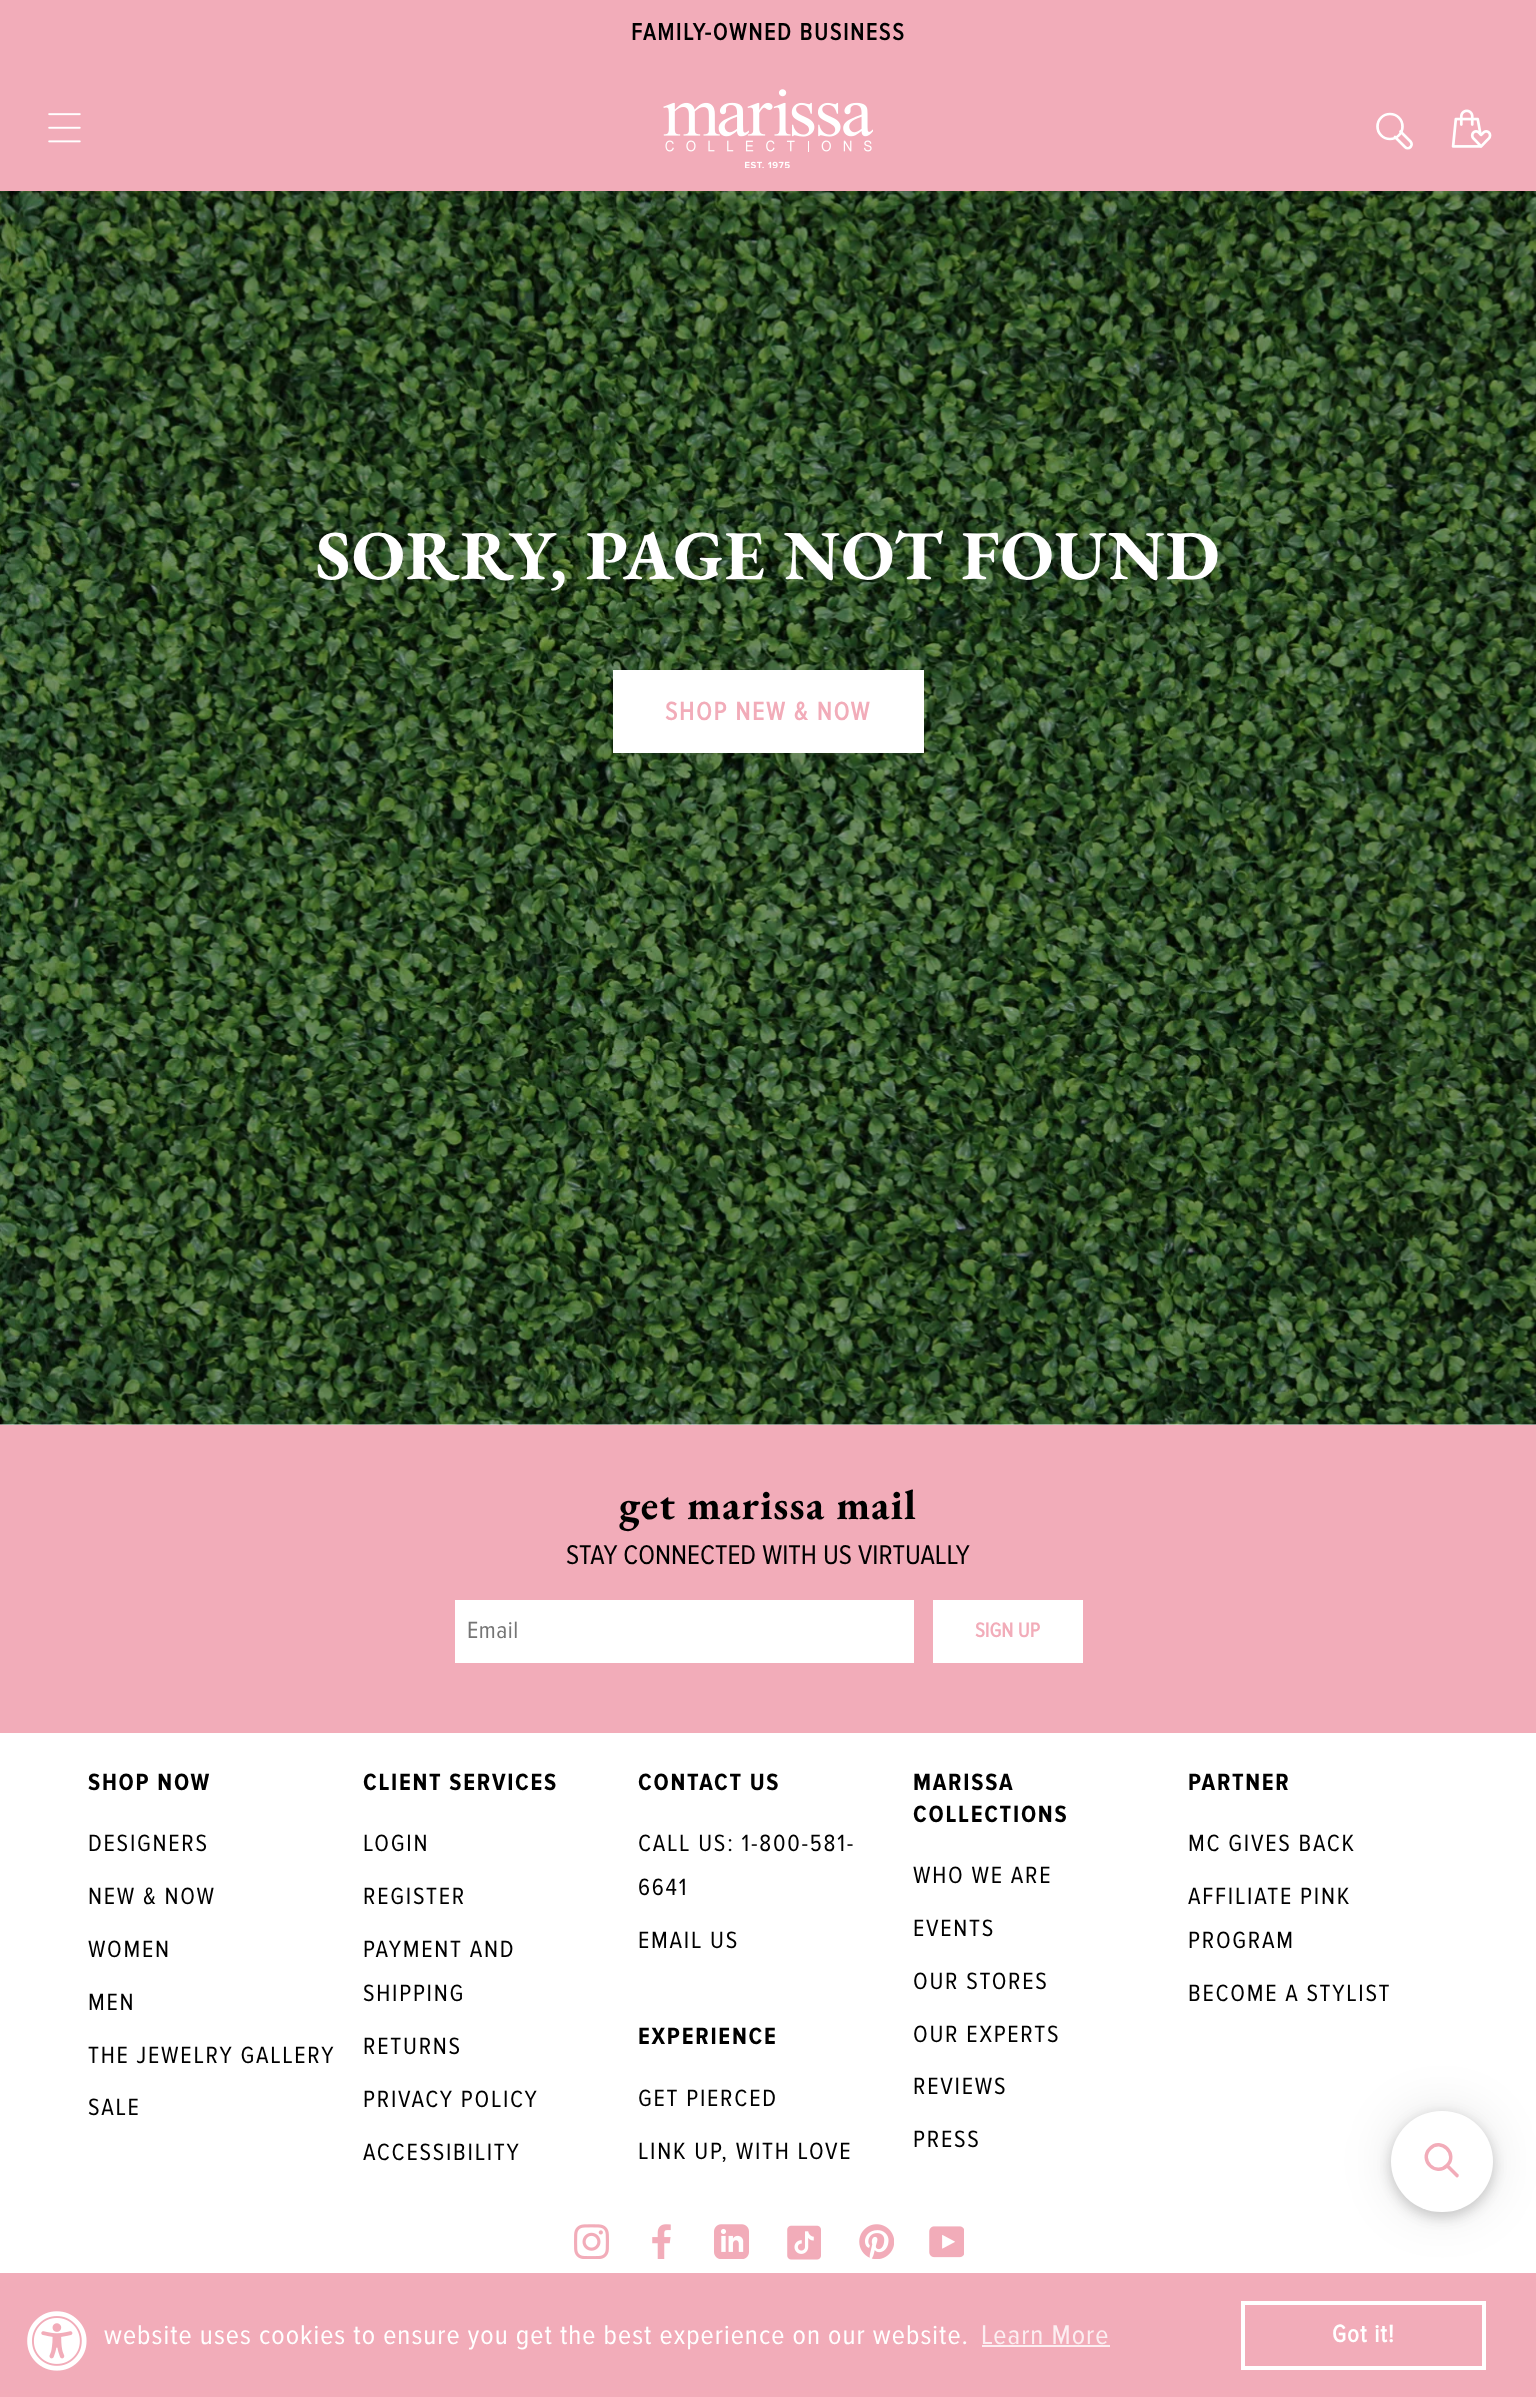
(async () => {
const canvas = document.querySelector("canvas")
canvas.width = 1536
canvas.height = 2397
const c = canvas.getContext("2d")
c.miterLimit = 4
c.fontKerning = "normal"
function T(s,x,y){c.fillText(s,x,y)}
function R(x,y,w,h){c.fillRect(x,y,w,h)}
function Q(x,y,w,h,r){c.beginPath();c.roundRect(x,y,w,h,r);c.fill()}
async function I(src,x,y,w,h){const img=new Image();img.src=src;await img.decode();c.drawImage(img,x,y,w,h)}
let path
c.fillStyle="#fff"
R(0,0,1536,2397)
c.fillStyle="#f2acb9"
R(0,0,1536,191)
c.letterSpacing="1.75px"
c.font="bold 24.5px 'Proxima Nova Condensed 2'"
c.fillStyle="#000"
T("FAMILY-OWNED BUSINESS",631,40)
await I("1.png",48,113,33,30)
await I("2.png",663,89,210,79)
c.beginPath()
c.arc(1390,126.5,12.5,0,7)
c.strokeStyle="#fff"
c.lineWidth=2.7
c.stroke()
path = new Path2D("M1395 137l10 10c1.5 1.5 4 1.5 5.5 0c1.5-1.5 1.5-4 0-5.5l-10-10")
c.lineCap="round"
c.lineJoin="round"
c.stroke(path)
await I("3.png",1451,109,41,39)
await I("4.png",0,191,1536,1234)
c.letterSpacing="1.05px"
c.font="bold 70px EB Garamond"
c.fillStyle="#fff"
T("SORRY, PAGE NOT FOUND",316,579)
R(613,670,311,83)
c.letterSpacing="1.75px"
c.font="bold 26.25px 'Proxima Nova Condensed 2'"
c.fillStyle="#f2acb9"
T("SHOP NEW & NOW",665,720)
R(0,1425,1536,308)
c.letterSpacing="1.05px"
c.font="bold 42px EB Garamond"
c.fillStyle="#000"
T("get marissa mail",619,1519)
c.letterSpacing="0px"
c.font="28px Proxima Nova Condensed"
T("STAY CONNECTED WITH US VIRTUALLY",566,1564)
c.fillStyle="#fff"
R(455,1600,459,63)
c.letterSpacing="0.5px"
c.font="24.5px Proxima Nova Condensed"
c.fillStyle="#757575"
T("Email",467,1638)
c.fillStyle="#fff"
R(933,1600,150,63)
c.letterSpacing="0px"
c.font="bold 21px 'Proxima Nova Condensed 2'"
c.fillStyle="#f2acb9"
T("SIGN UP",975,1637)
c.letterSpacing="1.75px"
c.font="bold 24.5px Proxima Nova Condensed"
c.fillStyle="#000"
T("SHOP NOW",88,1790)
c.font="24.5px Proxima Nova Condensed"
T("DESIGNERS",88,1851)
T("NEW & NOW",88,1904)
T("WOMEN",88,1957)
T("MEN",88,2010)
T("THE JEWELRY GALLERY",88,2063)
T("SALE",88,2115)
c.font="bold 24.5px Proxima Nova Condensed"
T("CLIENT SERVICES",363,1790)
c.font="24.5px Proxima Nova Condensed"
T("LOGIN",363,1851)
T("REGISTER",363,1904)
T("PAYMENT AND",363,1957)
T("SHIPPING",363,2001)
T("RETURNS",363,2054)
T("PRIVACY POLICY",363,2107)
T("ACCESSIBILITY",363,2160)
c.font="bold 24.5px Proxima Nova Condensed"
T("CONTACT US",638,1790)
c.font="24.5px Proxima Nova Condensed"
T("CALL US: 1-800-581-",638,1851)
T("6641",638,1895)
T("EMAIL US",638,1948)
c.font="bold 24.5px Proxima Nova Condensed"
T("EXPERIENCE",638,2044)
c.font="24.5px Proxima Nova Condensed"
T("GET PIERCED",638,2106)
T("LINK UP, WITH LOVE",638,2159)
c.font="bold 24.5px Proxima Nova Condensed"
T("MARISSA",913,1790)
T("COLLECTIONS",913,1822)
c.font="24.5px Proxima Nova Condensed"
T("WHO WE ARE",913,1883)
T("EVENTS",913,1936)
T("OUR STORES",913,1989)
T("OUR EXPERTS",913,2042)
T("REVIEWS",913,2094)
T("PRESS",913,2147)
c.font="bold 24.5px Proxima Nova Condensed"
T("PARTNER",1188,1790)
c.font="24.5px Proxima Nova Condensed"
T("MC GIVES BACK",1188,1851)
T("AFFILIATE PINK",1188,1904)
T("PROGRAM",1188,1948)
T("BECOME A STYLIST",1188,2001)
await I("5.png",574,2224,35,35)
await I("6.png",652,2224,19,35)
await I("7.png",714,2224,35,35)
await I("8.png",787,2225,34,35)
await I("9.png",859,2224,35,35)
await I("10.png",929,2226,35,32)
c.fillStyle="#0000000d"
c.filter="blur(7px)"
c.beginPath()
c.roundRect(1391,2118,102,101,50.5)
c.fill()
c.filter="none"
c.fillStyle="#00000026"
c.filter="blur(7px)"
c.beginPath()
c.roundRect(1391,2114,102,102,51)
c.fill()
c.filter="none"
c.fillStyle="#f2acb9"
R(0,2273,1536,124)
c.fillStyle="#0000001a"
c.filter="blur(26px)"
c.beginPath()
c.roundRect(1391,2111,102,101,50.5)
c.fill()
c.filter="none"
c.fillStyle="#fff"
Q(1391,2111,102,101,50.5)
path = new Path2D("M1430 2148.5c11-11.5 28.5 6 17 17c-11 11.5-28.5-5.5-17-17z")
c.strokeStyle="#f2acb9"
c.lineWidth=3.5
c.lineCap="butt"
c.lineJoin="miter"
c.stroke(path)
c.fillStyle="#f2acb9"
path = new Path2D("M1446 2167l2.5-2.5l10 10c1 2-1 4-2.5 2.5z")
c.fill(path)
await I("11.png",27,2311,60,60)
c.letterSpacing="1.05px"
c.font="28px Proxima Nova Condensed"
c.fillStyle="#fff"
T("website uses cookies to ensure you get the best experience on our website.",104,2344)
c.fillStyle="#fceef1"
T("Learn More",981,2344)
R(982,2345,128,2)
c.strokeStyle="#fff"
c.lineWidth=4
c.strokeRect(1243,2303,241,65)
c.font="bold 25px 'Proxima Nova Condensed 2'"
c.fillStyle="#fff"
T("Got it!",1332,2342)
})()
